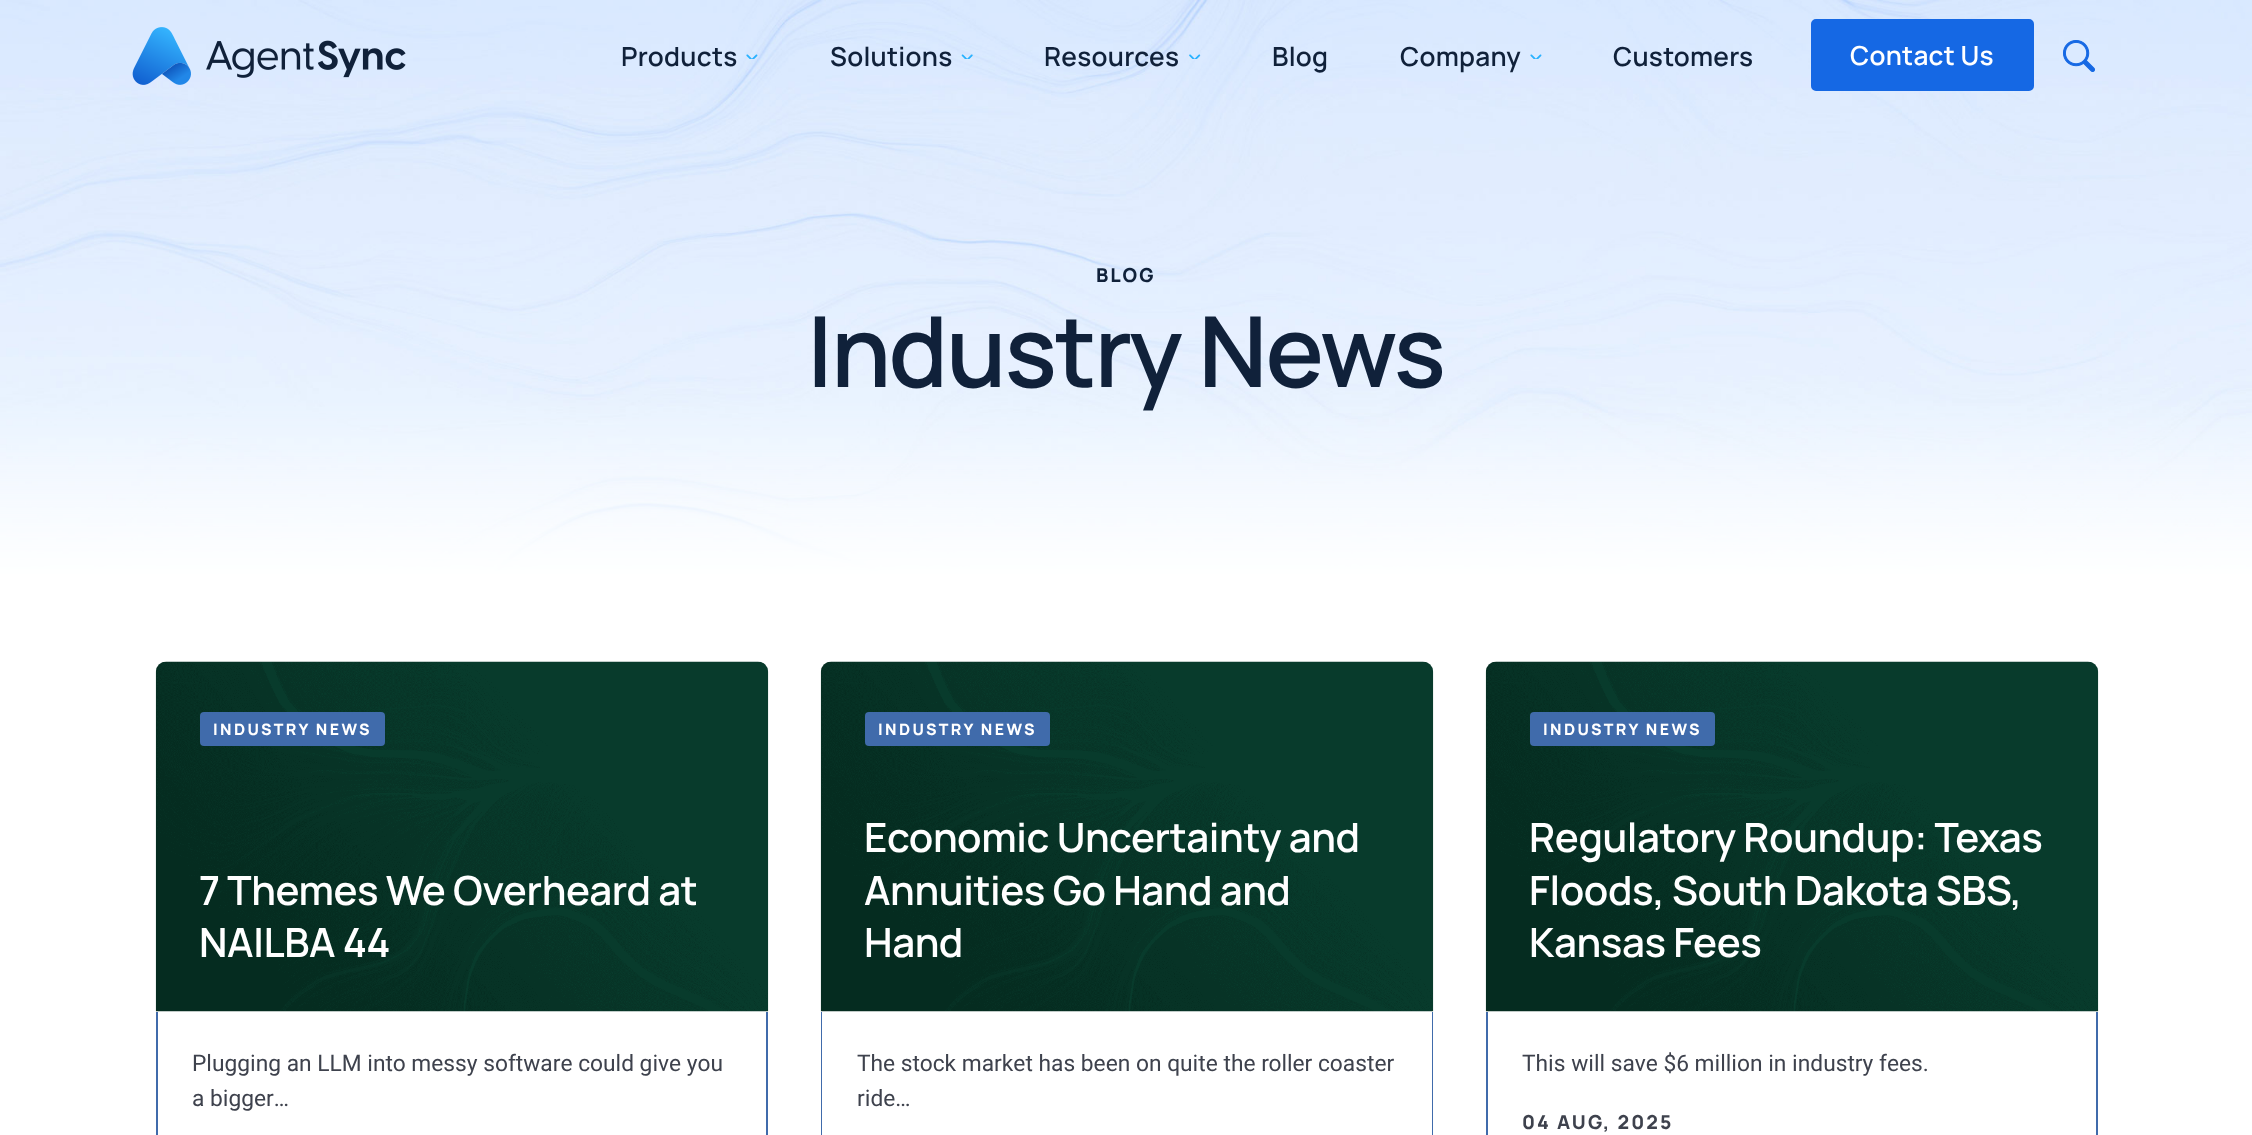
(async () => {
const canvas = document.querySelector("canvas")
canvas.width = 2252
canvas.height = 1135
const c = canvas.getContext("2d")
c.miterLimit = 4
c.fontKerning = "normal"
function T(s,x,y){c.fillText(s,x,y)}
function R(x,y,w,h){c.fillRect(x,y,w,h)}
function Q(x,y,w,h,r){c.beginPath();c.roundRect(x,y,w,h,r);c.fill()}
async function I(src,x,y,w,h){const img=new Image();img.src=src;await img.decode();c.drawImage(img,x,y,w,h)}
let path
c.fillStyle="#fff"
R(0,0,2252,1135)
await I("7.png",0,0,2252,574)
await I("1.png",132,27,274,58)
c.letterSpacing="0.25px"
c.font="600 26.25px Manrope"
c.fillStyle="#10213a"
T("Products",621,66)
await I("2.png",746,54,12,5)
T("Solutions",830,66)
await I("3.png",961,54,12,5)
T("Resources",1044,66)
await I("4.png",1189,54,12,5)
T("Blog",1272,66)
T("Company",1400,66)
await I("5.png",1530,54,12,5)
T("Customers",1613,66)
c.fillStyle="#1568e4"
c.beginPath()
c.roundRect(1813,21,219,68,3)
c.fill()
c.strokeStyle="#1568e4"
c.lineWidth=4
c.stroke()
c.fillStyle="#fff"
T("Contact Us",1850,65)
await I("6.png",2063,40,32,32)
c.letterSpacing="2.1px"
c.font="800 19.25px Manrope"
c.fillStyle="#10213a"
T("BLOG",1096,282)
c.letterSpacing="-2px"
c.font="600 98px Manrope"
T("Industry News",807,387)
c.fillStyle="#406bab"
path = new Path2D("M156 1012h612v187c0 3-2 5-5 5h-602c-3 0-5-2-5-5zm2 0h608v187c0 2-1 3-3 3h-602c-2 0-3-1-3-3z")
c.fill(path,"evenodd")
await I("8.png",155,661,614,351)
Q(200,712,185,34,4)
c.letterSpacing="2.4px"
c.font="800 15.75px Manrope"
c.fillStyle="#fff"
T("INDUSTRY NEWS",213,735)
c.letterSpacing="0px"
c.font="22.75px Heebo"
c.fillStyle="#3e424d"
T("Plugging an LLM into messy software could give you",192,1071)
T("a bigger…",192,1106)
c.letterSpacing="-0.4px"
c.font="600 40.25px Manrope"
c.fillStyle="#fff"
T("7 Themes We Overheard at",199,905)
T("NAILBA 44",199,957)
c.fillStyle="#406bab"
path = new Path2D("M821 1012h612v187c0 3-2 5-5 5h-602c-3 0-5-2-5-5zm1 0h610v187c0 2-2 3-4 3h-602c-2 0-4-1-4-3z")
c.fill(path,"evenodd")
await I("9.png",820,661,614,351)
Q(865,712,185,34,4)
c.letterSpacing="2.4px"
c.font="800 15.75px Manrope"
c.fillStyle="#fff"
T("INDUSTRY NEWS",878,735)
c.letterSpacing="0px"
c.font="22.75px Heebo"
c.fillStyle="#3e424d"
T("The stock market has been on quite the roller coaster",857,1071)
T("ride…",857,1106)
c.letterSpacing="-0.4px"
c.font="600 40.25px Manrope"
c.fillStyle="#fff"
T("Economic Uncertainty and",864,852)
T("Annuities Go Hand and",864,905)
T("Hand",864,957)
c.fillStyle="#406bab"
path = new Path2D("M1486 1012h612v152c0 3-2 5-5 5h-602c-3 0-5-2-5-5zm2 0h608v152c0 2-1 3-3 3h-602c-2 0-3-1-3-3z")
c.fill(path,"evenodd")
await I("10.png",1485,661,614,351)
Q(1530,712,185,34,4)
c.letterSpacing="2.4px"
c.font="800 15.75px Manrope"
c.fillStyle="#fff"
T("INDUSTRY NEWS",1543,735)
c.letterSpacing="2.1px"
c.font="800 19.25px Manrope"
c.fillStyle="#3e424d"
T("04 AUG, 2025",1522,1129)
c.letterSpacing="0px"
c.font="22.75px Heebo"
T("This will save $6 million in industry fees.",1522,1071)
c.letterSpacing="-0.4px"
c.font="600 40.25px Manrope"
c.fillStyle="#fff"
T("Regulatory Roundup: Texas",1529,852)
T("Floods, South Dakota SBS,",1529,905)
T("Kansas Fees",1529,957)
})()
